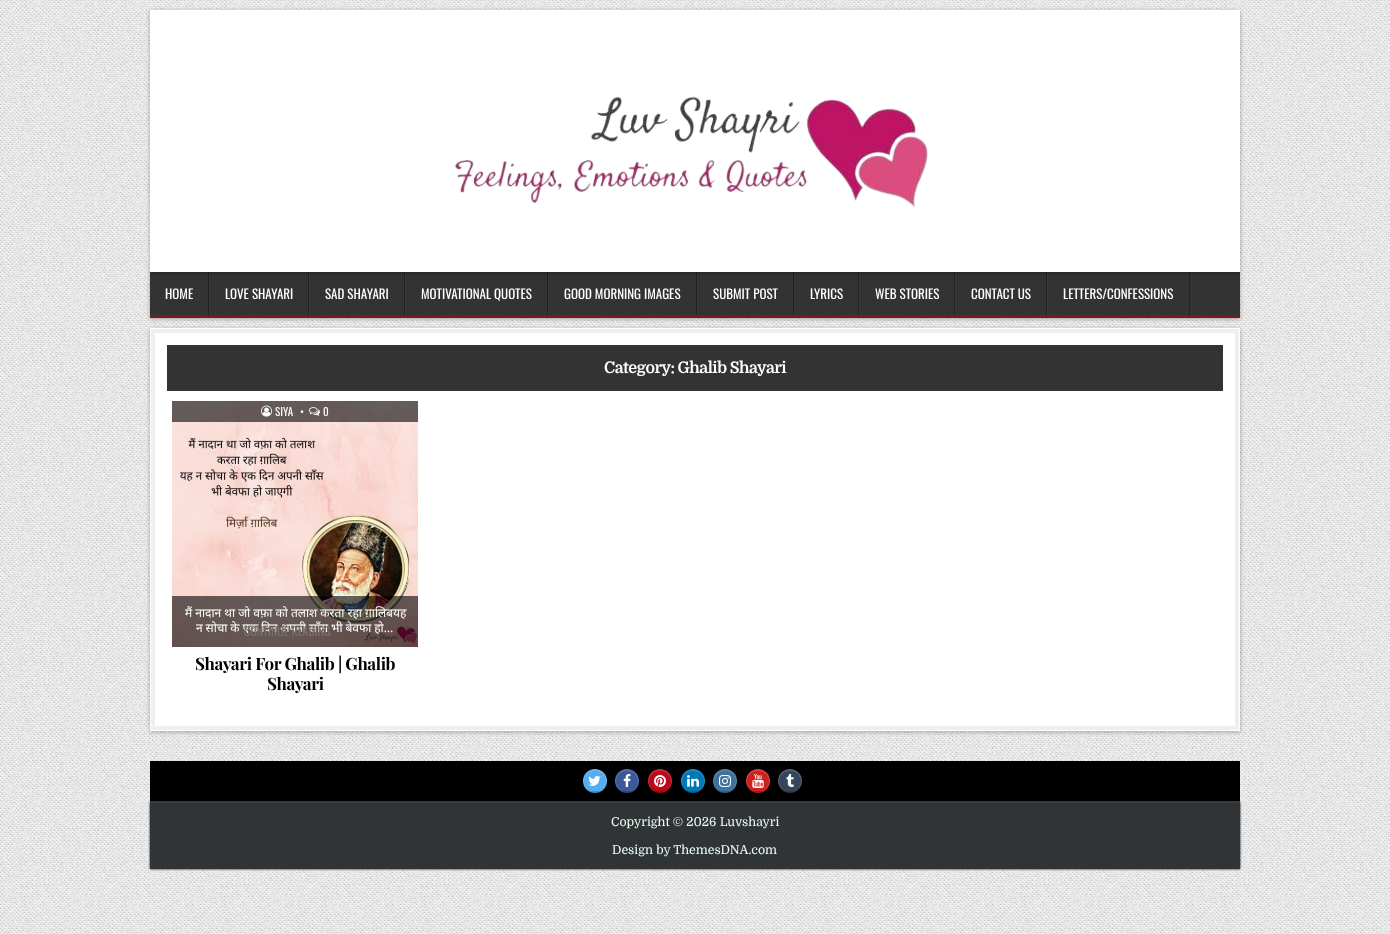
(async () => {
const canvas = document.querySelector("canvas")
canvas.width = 1390
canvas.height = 934
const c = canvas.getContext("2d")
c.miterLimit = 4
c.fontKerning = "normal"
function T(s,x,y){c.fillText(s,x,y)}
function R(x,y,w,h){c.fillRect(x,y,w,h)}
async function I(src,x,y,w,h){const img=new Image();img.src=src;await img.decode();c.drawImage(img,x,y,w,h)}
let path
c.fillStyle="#fff"
R(0,0,1390,934)
await I("1.png",0,0,1390,934)
c.fillStyle="#0000004d"
c.filter="blur(2px)"
c.beginPath()
c.rect(150,273,1090,46)
c.fill()
c.filter="none"
c.fillStyle="#333"
R(150,272,1090,43)
c.fillStyle="#222"
R(208,272,1,43)
R(308,272,1,43)
c.fillStyle="#383838"
R(209,272,1,43)
c.fillStyle="#222"
R(404,272,1,43)
c.fillStyle="#383838"
R(309,272,1,43)
c.fillStyle="#222"
R(547,272,1,43)
c.fillStyle="#383838"
R(405,272,1,43)
c.fillStyle="#222"
R(696,272,1,43)
c.fillStyle="#383838"
R(548,272,1,43)
c.fillStyle="#222"
R(793,272,1,43)
c.fillStyle="#383838"
R(697,272,1,43)
c.fillStyle="#222"
R(858,272,1,43)
c.fillStyle="#383838"
R(794,272,1,43)
c.fillStyle="#222"
R(954,272,1,43)
c.fillStyle="#383838"
R(859,272,1,43)
c.fillStyle="#222"
R(1046,272,1,43)
c.fillStyle="#383838"
R(955,272,1,43)
c.fillStyle="#222"
R(1189,272,1,43)
c.fillStyle="#383838"
R(1047,272,1,43)
c.fillStyle="#0000004d"
c.filter="blur(2px)"
c.beginPath()
c.rect(150,11,1090,262)
c.fill()
c.filter="none"
c.fillStyle="#fff"
R(150,10,1090,262)
await I("2.png",455,96,473,112)
c.fillStyle="#7f181b"
R(150,315,1090,3)
c.font="13px Oswald"
c.fillStyle="#fff"
T("HOME",165,299)
T("LOVE SHAYARI",225,299)
T("SAD SHAYARI",325,299)
T("MOTIVATIONAL QUOTES",421,299)
T("GOOD MORNING IMAGES",564,299)
T("SUBMIT POST",713,299)
T("LYRICS",810,299)
T("WEB STORIES",875,299)
T("CONTACT US",971,299)
T("LETTERS/CONFESSIONS",1063,299)
c.fillStyle="#0000004d"
c.filter="blur(2px)"
c.beginPath()
c.rect(150,329,1090,403)
c.fill()
c.filter="none"
c.fillStyle="#fff"
R(150,328,1090,403)
c.strokeStyle="#efefef"
c.lineWidth=4
c.strokeRect(153,331,1084,397)
c.fillStyle="#333"
R(167,345,1056,46)
c.letterSpacing="-0.5px"
c.font="bold 16px Domine"
c.fillStyle="#fff"
T("Category: Ghalib Shayari",604,373)
await I("3.png",172,401,246,246)
c.fillStyle="#00000099"
R(172,401,246,21)
await I("4.png",261,405,11,12)
c.letterSpacing="0px"
c.font="11px Oswald"
c.fillStyle="#fff"
T("SIYA",275,416)
T("•",300,416)
await I("5.png",309,407,11,9)
T("0",323,416)
c.fillStyle="#00000099"
R(172,596,246,51)
c.font="12px Noto Sans"
c.fillStyle="#fff"
T("मैं नादान था जो वफ़ा को तलाश करता रहा ग़ालिबयह",185,617)
c.wordSpacing="-0.25px"
T("न सोचा के एक दिन अपनी साँस भी बेवफा हो…",196,632)
c.wordSpacing="0px"
c.font="12px Oswald"
c.fillStyle="#7d706e"
T("CONTINUE READING",244,636)
c.letterSpacing="-0.4px"
c.font="bold 17px Playfair Display"
c.fillStyle="#000"
T("Shayari For Ghalib | Ghalib",195,670)
T("Shayari",267,690)
R(150,761,1090,40)
c.fillStyle="#555"
R(150,801,1090,1)
c.fillStyle="#55acee"
c.beginPath()
c.arc(595,781,12,0,7)
c.fill()
c.fillStyle="#ffffff24"
path = new Path2D("M595 771c12 0 14.5 15 5 19c4-1.5 7-5 7-9c0-6.5-5.5-12-12-12c-6.5 0-12 5.5-12 12c0 4 3 7.5 7 9c-9.5-4-7-19 5-19z")
c.fill(path)
c.fillStyle="#0000002e"
R(589,791,12,2)
await I("6.png",588,776,13,10)
c.fillStyle="#3b5998"
c.beginPath()
c.arc(627,781,12,0,7)
c.fill()
c.fillStyle="#ffffff24"
path = new Path2D("M627 771c12 0 14.5 15 5 19c4-1.5 7-5 7-9c0-6.5-5.5-12-12-12c-6.5 0-12 5.5-12 12c0 4 3 7.5 7 9c-9.5-4-7-19 5-19z")
c.fill(path)
c.fillStyle="#0000002e"
R(621,791,12,2)
await I("7.png",623,774,8,13)
c.fillStyle="#bd081c"
c.beginPath()
c.arc(660,781,12,0,7)
c.fill()
c.fillStyle="#ffffff24"
path = new Path2D("M660 771c12 0 14.5 15 5 19c4-1.5 7-5 7-9c0-6.5-5.5-12-12-12c-6.5 0-12 5.5-12 12c0 4 3 7.5 7 9c-9.5-4-7-19 5-19z")
c.fill(path)
c.fillStyle="#0000002e"
R(654,791,12,2)
await I("8.png",654,775,12,12)
c.fillStyle="#0077b5"
c.beginPath()
c.arc(693,781,12,0,7)
c.fill()
c.fillStyle="#ffffff24"
path = new Path2D("M693 771c12 0 14.5 15 5 19c4-1.5 7-5 7-9c0-6.5-5.5-12-12-12c-6.5 0-12 5.5-12 12c0 4 3 7.5 7 9c-9.5-4-7-19 5-19z")
c.fill(path)
c.fillStyle="#0000002e"
R(687,791,12,2)
await I("9.png",687,775,12,12)
c.fillStyle="#3f729b"
c.beginPath()
c.arc(725,781,12,0,7)
c.fill()
c.fillStyle="#ffffff24"
path = new Path2D("M725 771c12 0 14.5 15 5 19c4-1.5 7-5 7-9c0-6.5-5.5-12-12-12c-6.5 0-12 5.5-12 12c0 4 3 7.5 7 9c-9.5-4-7-19 5-19z")
c.fill(path)
c.fillStyle="#0000002e"
R(719,791,12,2)
await I("10.png",719,775,12,12)
c.fillStyle="#cd201f"
c.beginPath()
c.arc(758,781,12,0,7)
c.fill()
c.fillStyle="#ffffff24"
path = new Path2D("M758 771c12 0 14.5 15 5 19c4-1.5 7-5 7-9c0-6.5-5.5-12-12-12c-6.5 0-12 5.5-12 12c0 4 3 7.5 7 9c-9.5-4-7-19 5-19z")
c.fill(path)
c.fillStyle="#0000002e"
R(752,791,12,2)
await I("11.png",752,774,12,14)
c.fillStyle="#35465c"
c.beginPath()
c.arc(790,781,12,0,7)
c.fill()
c.fillStyle="#ffffff24"
path = new Path2D("M790 771c12 0 14.5 15 5 19c4-1.5 7-5 7-9c0-6.5-5.5-12-12-12c-6.5 0-12 5.5-12 12c0 4 3 7.5 7 9c-9.5-4-7-19 5-19z")
c.fill(path)
c.fillStyle="#0000002e"
R(784,791,12,2)
await I("12.png",786,774,8,13)
c.fillStyle="#000"
c.filter="blur(1px)"
c.beginPath()
c.rect(150,802,1090,67)
c.fill()
c.filter="none"
c.fillStyle="#303436"
R(150,803,1090,66)
c.fillStyle="#3d3d3d"
R(150,802,1090,1)
c.letterSpacing="0px"
c.font="12.3px Domine"
c.fillStyle="#ecfff1"
T("Copyright © 2026 Luvshayri",611,826)
T("Design by ThemesDNA.com",612,854)
})()
